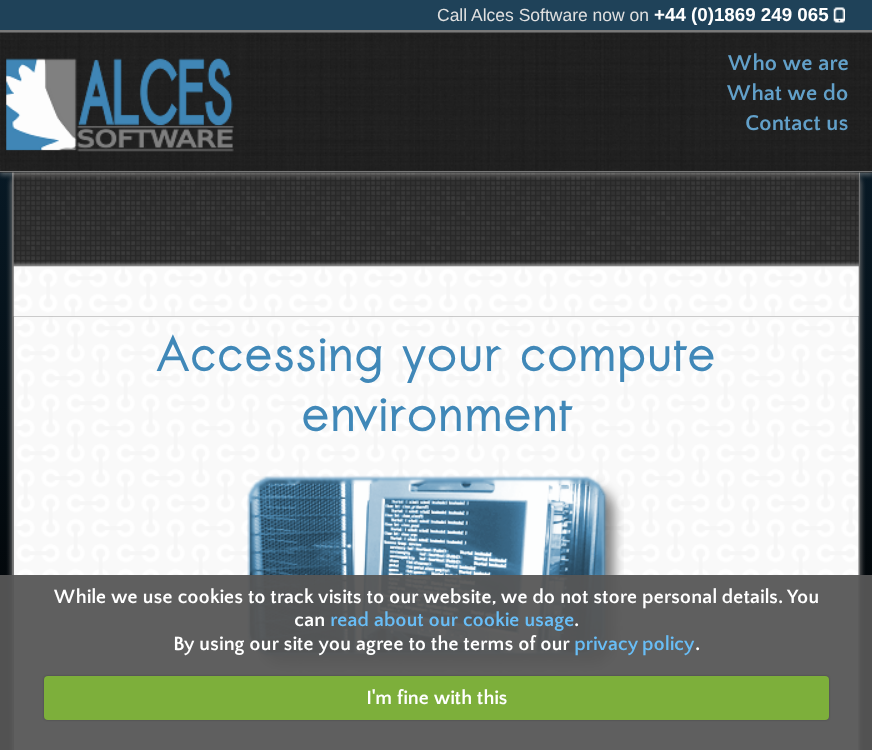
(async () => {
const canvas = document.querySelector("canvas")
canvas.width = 872
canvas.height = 750
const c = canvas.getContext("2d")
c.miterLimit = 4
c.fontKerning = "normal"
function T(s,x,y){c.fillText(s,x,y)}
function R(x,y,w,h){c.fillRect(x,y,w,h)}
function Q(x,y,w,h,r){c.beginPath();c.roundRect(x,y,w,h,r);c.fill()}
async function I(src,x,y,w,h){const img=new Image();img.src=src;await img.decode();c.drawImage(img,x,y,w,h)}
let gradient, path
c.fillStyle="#fff"
R(0,0,872,750)
gradient = c.createLinearGradient(436,0,436,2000)
gradient.addColorStop(0,"#0a202f")
gradient.addColorStop(.38,"#000")
gradient.addColorStop(.5,"#133d59")
gradient.addColorStop(1,"#000")
c.fillStyle = gradient
R(0,172,872,578)
c.fillStyle="#1f4259"
R(0,0,872,30)
c.fillStyle="#777"
R(0,30,872,3)
c.font="17.5px Liberation Sans"
c.fillStyle="#e0e0e0"
T("Call Alces Software now on",437,21)
c.font="bold 18.75px Liberation Sans"
c.fillStyle="#fff"
T("+44 (0)1869 249 065",654,21)
await I("1.png",833,7,12,16)
c.fillStyle="#777777e6"
c.filter="blur(2.5px)"
c.beginPath()
c.roundRect(11,171,850,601,14)
c.fill()
c.filter="none"
path = new Path2D("M12 172h848v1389c0 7-6 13-12 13h-823c-7 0-13-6-13-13zm2 0h845v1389c0 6-5 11-11 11h-823c-6 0-11-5-11-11z")
c.fill(path,"evenodd")
await I("4.png",13,172,846,145)
c.fillStyle="#dcdad866"
c.filter="blur(2.5px)"
c.beginPath()
c.rect(0,35,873,140)
c.fill()
c.filter="none"
await I("2.png",0,32,872,141)
c.fillStyle="#777"
R(0,171,872,1)
await I("3.png",6,58,228,94)
c.font="bold 22.5px Quattrocento Sans"
c.fillStyle="#62a0c9"
T("Who we are",728,70)
T("What we do",727,100)
T("Contact us",745,130)
await I("5.png",13,316,846,434)
c.font="bold 50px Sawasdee"
c.fillStyle="#4088b8"
T("Accessing your compute",156,371)
T("environment",301,431)
await I("6.png",247,475,377,199)
c.fillStyle="#565656f2"
R(0,575,872,175)
c.font="bold 20px Quattrocento Sans"
c.fillStyle="#fff"
T("While we use cookies to track visits to our website, we do not store personal details. You",54,603)
T("can",294,626)
c.fillStyle="#68bdf6"
T("read about our cookie usage",330,626)
c.fillStyle="#fff"
T(".",574,626)
T("By using our site you agree to the terms of our",173,650)
c.wordSpacing="-1px"
c.fillStyle="#68bdf6"
T("privacy policy",574,650)
c.wordSpacing="0px"
c.fillStyle="#fff"
T(".",695,650)
c.fillStyle="#00000040"
c.filter="blur(1px)"
c.beginPath()
c.roundRect(44,676,785,44,4)
c.fill()
c.filter="none"
c.fillStyle="#7daf3b"
Q(44,676,785,44,4)
c.fillStyle="#fff"
T("I'm fine with this",366,704)
})()
